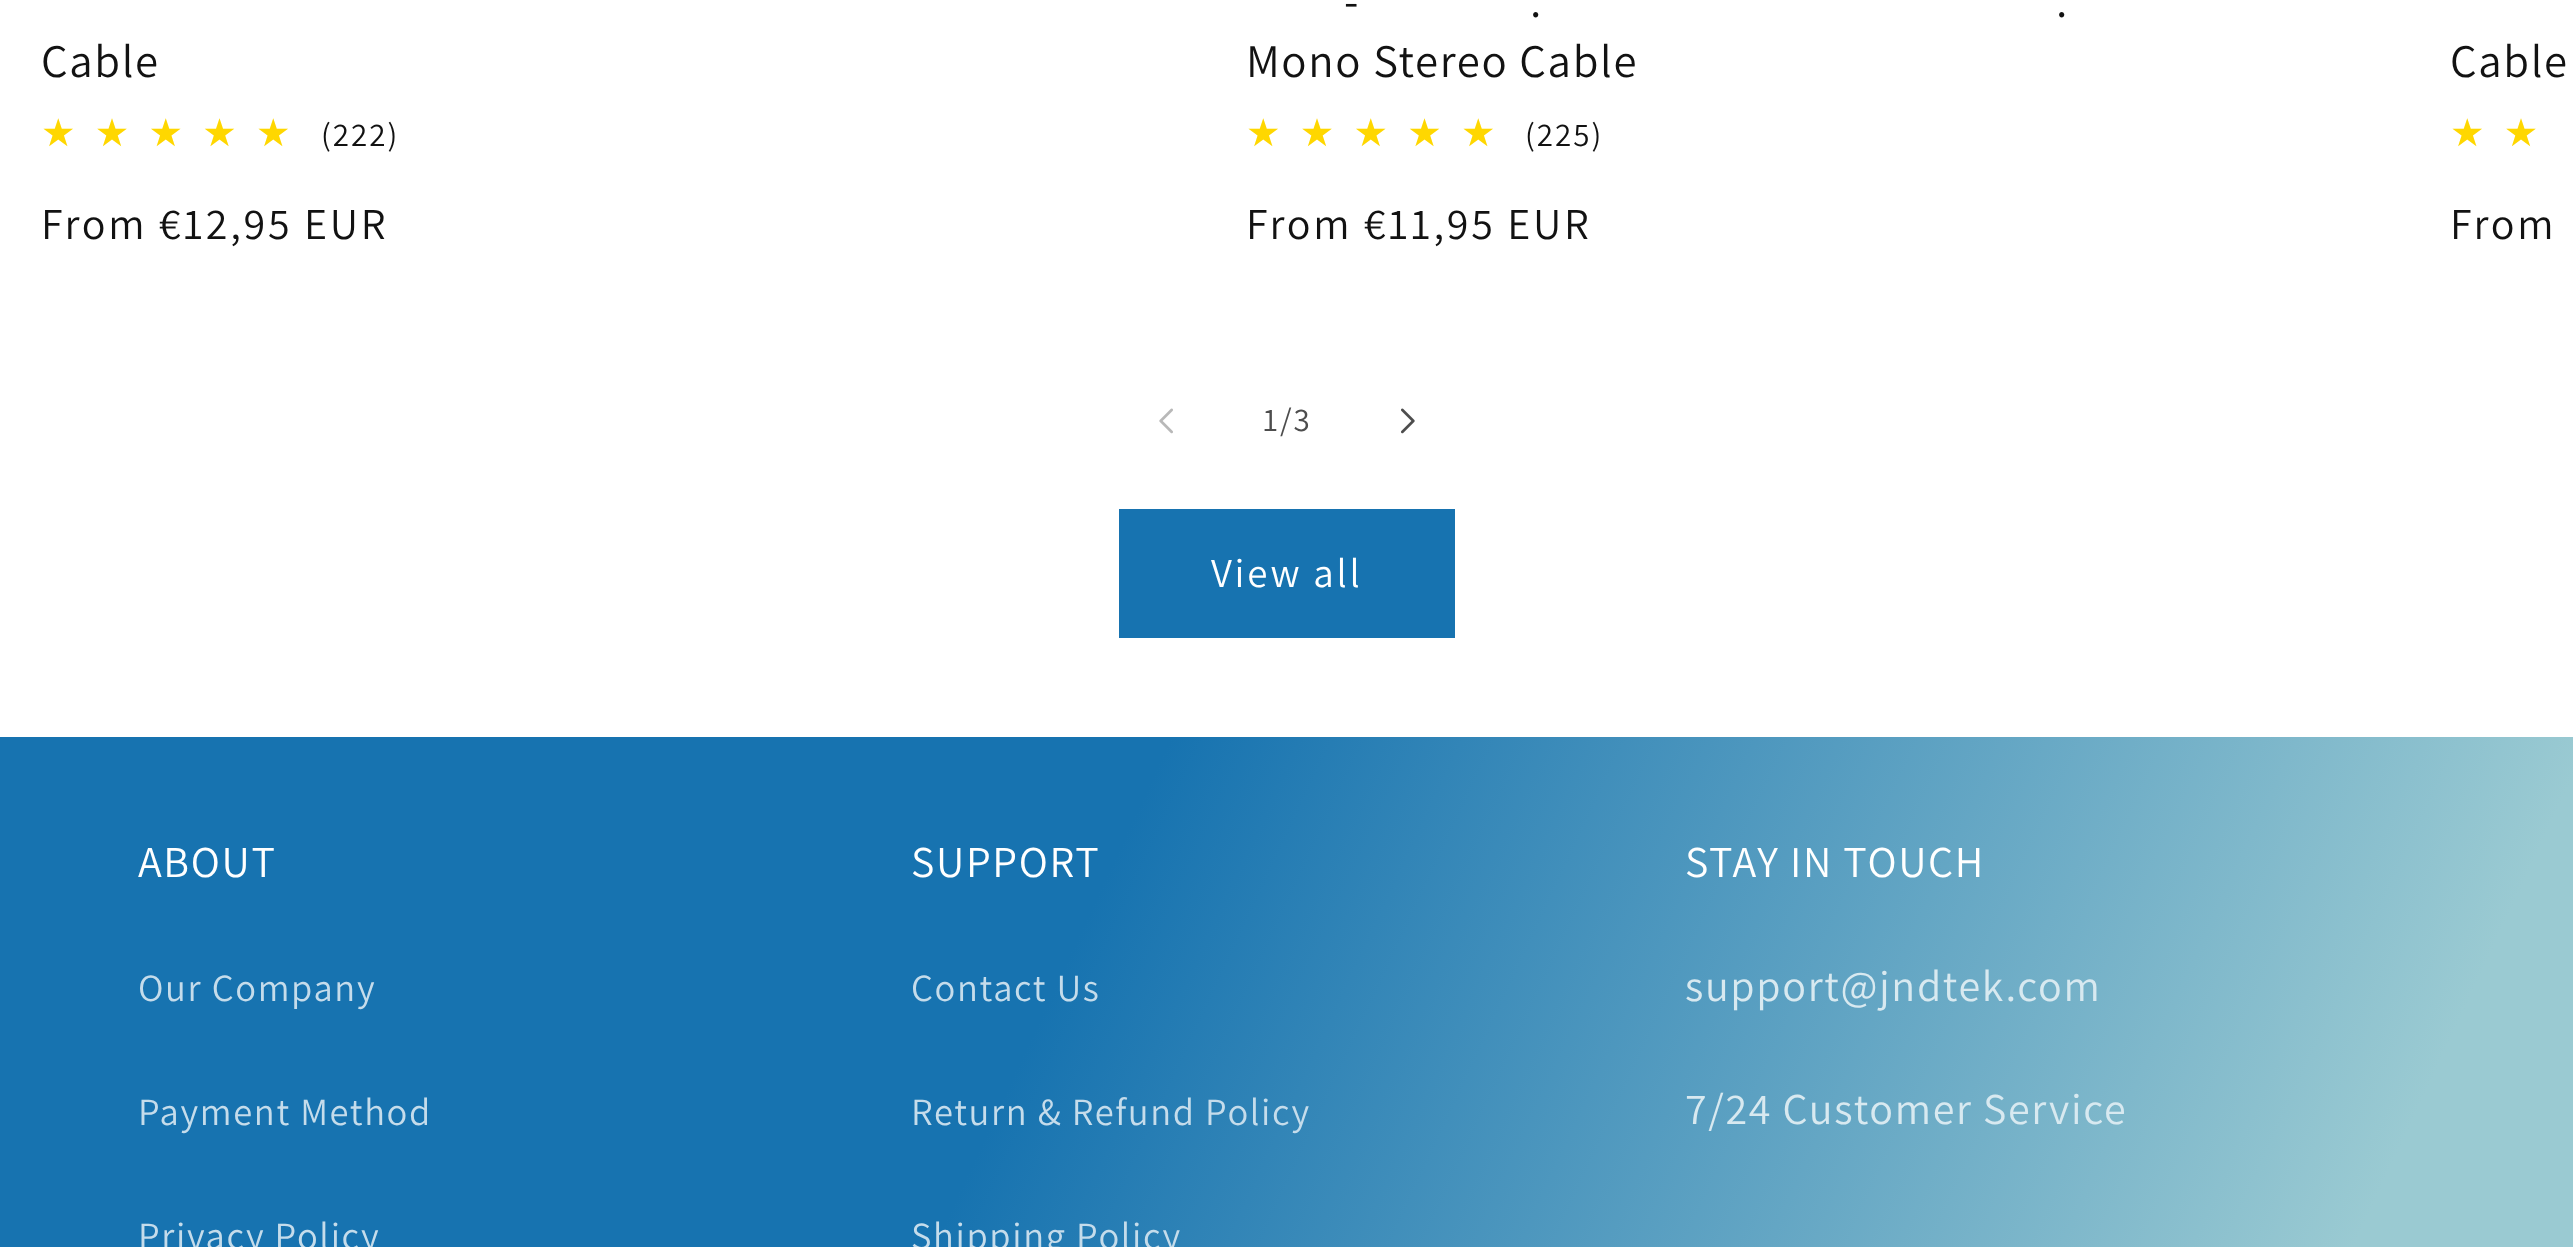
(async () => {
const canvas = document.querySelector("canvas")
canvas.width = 2573
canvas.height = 1247
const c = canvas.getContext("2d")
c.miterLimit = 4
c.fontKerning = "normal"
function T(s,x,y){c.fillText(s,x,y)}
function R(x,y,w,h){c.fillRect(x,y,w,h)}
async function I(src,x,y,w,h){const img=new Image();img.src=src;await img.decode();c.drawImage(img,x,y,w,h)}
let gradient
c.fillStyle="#fff"
R(0,0,2573,1247)
c.letterSpacing="1.65px"
c.font="46.75px Assistant"
c.fillStyle="#121212"
T("Cable",41,77)
c.letterSpacing="19.25px"
c.font="38.5px DejaVu Sans"
c.fillStyle="#ffd700"
T("★★★★★",41,146)
c.letterSpacing="2px"
c.font="33px Assistant"
c.fillStyle="#121212"
T("(222)",321,146)
c.letterSpacing="2.75px"
c.font="44px Assistant"
T("From €12,95 EUR",41,239)
c.letterSpacing="1.65px"
c.font="46.75px Assistant"
T("-",1344,17)
T(".",1530,17)
T(".",2056,17)
T("Mono Stereo Cable",1246,77)
c.letterSpacing="19.25px"
c.font="38.5px DejaVu Sans"
c.fillStyle="#ffd700"
T("★★★★★",1246,146)
c.letterSpacing="2px"
c.font="33px Assistant"
c.fillStyle="#121212"
T("(225)",1525,146)
c.letterSpacing="2.75px"
c.font="44px Assistant"
T("From €11,95 EUR",1246,239)
c.letterSpacing="1.65px"
c.font="46.75px Assistant"
T("Cable",2450,77)
c.letterSpacing="19.25px"
c.font="38.5px DejaVu Sans"
c.fillStyle="#ffd700"
T("★★",2450,146)
c.letterSpacing="2.75px"
c.font="44px Assistant"
c.fillStyle="#121212"
T("From",2450,239)
await I("1.png",1159,408,14,26)
c.letterSpacing="2px"
c.font="33px Assistant"
c.fillStyle="#4d4d4d"
T("1/3",1263,431)
await I("2.png",1401,408,14,26)
c.fillStyle="#1773b0"
R(1119,509,336,129)
c.letterSpacing="2.75px"
c.font="41px Assistant"
c.fillStyle="#fff"
T("View all",1211,587)
gradient = c.createLinearGradient(-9,20,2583,1229)
gradient.addColorStop(.48,"#1773b0")
gradient.addColorStop(.93,"#9acad2")
c.fillStyle = gradient
R(0,737,2573,510)
c.letterSpacing="1.65px"
c.font="44px Assistant"
c.fillStyle="#fff"
T("ABOUT",138,877)
c.font="38.5px Assistant"
c.fillStyle="#c5dceb"
T("Our Company",138,1001)
T("Payment Method",138,1125)
T("Privacy Policy",138,1249)
c.font="44px Assistant"
c.fillStyle="#fff"
T("SUPPORT",911,877)
c.font="38.5px Assistant"
c.fillStyle="#c5dceb"
T("Contact Us",911,1001)
T("Return & Refund Policy",911,1125)
T("Shipping Policy",911,1249)
c.font="44px Assistant"
c.fillStyle="#fff"
T("STAY IN TOUCH",1685,877)
c.fillStyle="#d8e9f0"
T("support@jndtek.com",1685,1001)
T("7/24 Customer Service",1685,1124)
})()
